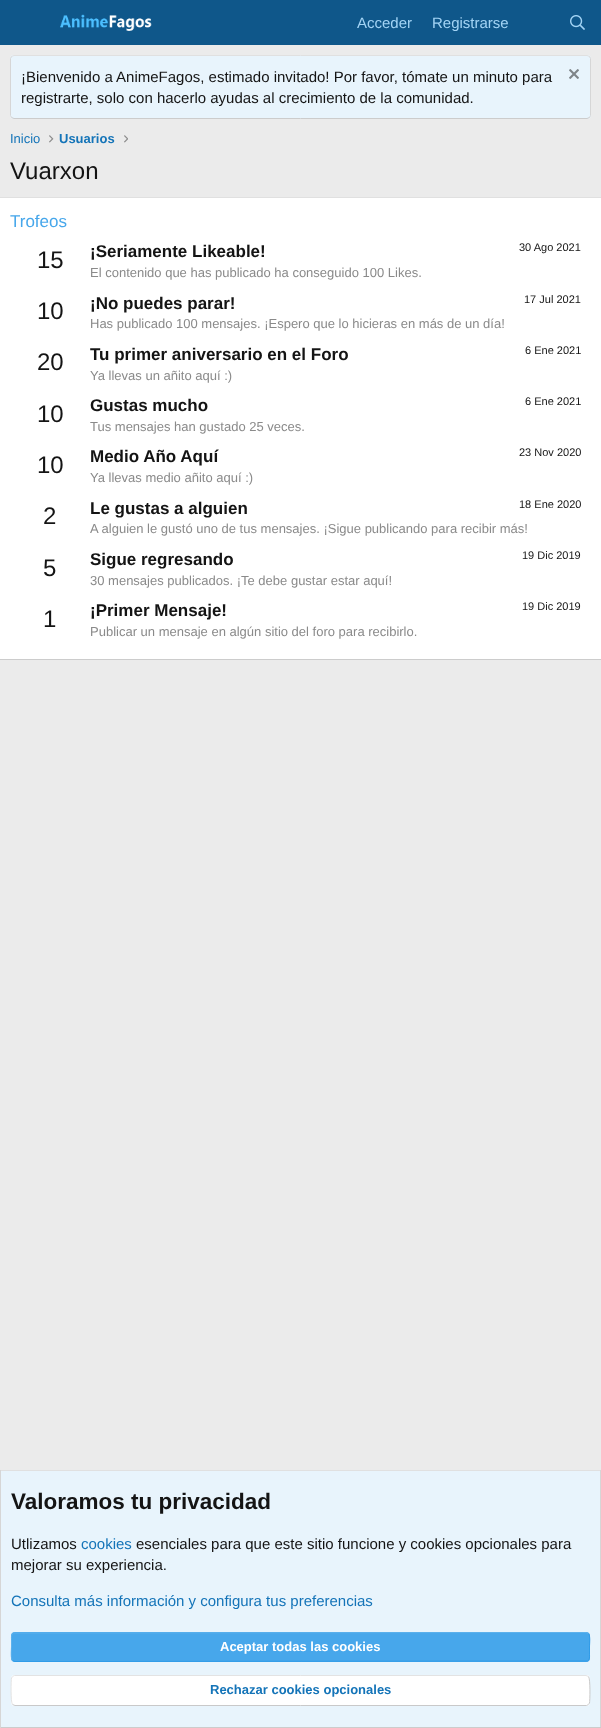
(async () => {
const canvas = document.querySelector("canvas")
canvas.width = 601
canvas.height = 1728
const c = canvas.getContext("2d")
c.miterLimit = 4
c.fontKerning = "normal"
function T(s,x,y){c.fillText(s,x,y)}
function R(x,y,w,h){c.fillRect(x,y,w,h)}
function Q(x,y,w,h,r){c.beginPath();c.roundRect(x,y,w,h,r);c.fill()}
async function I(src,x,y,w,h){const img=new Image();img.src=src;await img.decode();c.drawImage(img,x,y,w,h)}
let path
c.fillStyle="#ebebeb"
R(0,0,601,1728)
c.fillStyle="#0f578a"
R(0,0,601,45)
await I("1.png",60,14,92,17)
c.font="15px Liberation Sans"
c.fillStyle="#a3d4f5"
T("Acceder",357,28)
T("Registrarse",432,28)
await I("2.png",570,15,15,15)
c.fillStyle="#e8f4fc"
Q(10,55,581,64,4)
path = new Path2D("M11.5 56.5l2.5-1h573l2.5 1")
c.strokeStyle="#e0e0e0"
c.stroke(path)
path = new Path2D("M589.5 56.5l1 2v57l-1 2")
c.strokeStyle="#d6d6d6"
c.stroke(path)
path = new Path2D("M589.5 117.5l-2.5 1h-573l-2.5-1")
c.strokeStyle="#ccc"
c.stroke(path)
path = new Path2D("M11.5 117.5l-1-2v-57l1-2")
c.strokeStyle="#d6d6d6"
c.stroke(path)
c.fillStyle="#141414"
T("¡Bienvenido a AnimeFagos, estimado invitado! Por favor, tómate un minuto para",21,82)
await I("3.png",569,69,10,10)
T("registrarte, solo con hacerlo ayudas al crecimiento de la comunidad.",21,103)
c.font="13px Liberation Sans"
c.fillStyle="#1474b8"
T("Inicio",10,143)
await I("4.png",49,135,5,8)
c.font="bold 13px Liberation Sans"
T("Usuarios",59,143)
await I("5.png",124,135,4,8)
c.font="24px Liberation Sans"
c.fillStyle="#141414"
T("Vuarxon",10,179)
c.fillStyle="#fff"
R(0,198,601,461)
c.fillStyle="#e0e0e0"
R(0,197,601,1)
c.fillStyle="#ccc"
R(0,659,601,1)
c.font="17px Liberation Sans"
c.fillStyle="#47a7eb"
T("Trofeos",10,227)
c.font="24px Liberation Sans"
c.fillStyle="#141414"
T("15",37,268)
c.font="bold 17px Liberation Sans"
T("¡Seriamente Likeable!",90,257)
c.font="11px Liberation Sans"
T("30 Ago 2021",519,251)
c.font="13px Liberation Sans"
c.fillStyle="#8a8a8a"
T("El contenido que has publicado ha conseguido 100 Likes.",90,277)
c.font="24px Liberation Sans"
c.fillStyle="#141414"
T("10",37,319)
c.font="bold 17px Liberation Sans"
T("¡No puedes parar!",90,309)
c.font="11px Liberation Sans"
T("17 Jul 2021",524,303)
c.font="13px Liberation Sans"
c.fillStyle="#8a8a8a"
T("Has publicado 100 mensajes. ¡Espero que lo hicieras en más de un día!",90,328)
c.font="24px Liberation Sans"
c.fillStyle="#141414"
T("20",37,370)
c.font="bold 17px Liberation Sans"
T("Tu primer aniversario en el Foro",90,360)
c.font="11px Liberation Sans"
T("6 Ene 2021",525,354)
c.font="13px Liberation Sans"
c.fillStyle="#8a8a8a"
T("Ya llevas un añito aquí :)",90,380)
c.font="24px Liberation Sans"
c.fillStyle="#141414"
T("10",37,422)
c.font="bold 17px Liberation Sans"
T("Gustas mucho",90,411)
c.font="11px Liberation Sans"
T("6 Ene 2021",525,405)
c.font="13px Liberation Sans"
c.fillStyle="#8a8a8a"
T("Tus mensajes han gustado 25 veces.",90,431)
c.font="24px Liberation Sans"
c.fillStyle="#141414"
T("10",37,473)
c.font="bold 17px Liberation Sans"
T("Medio Año Aquí",90,462)
c.font="11px Liberation Sans"
T("23 Nov 2020",519,456)
c.font="13px Liberation Sans"
c.fillStyle="#8a8a8a"
T("Ya llevas medio añito aquí :)",90,482)
c.font="24px Liberation Sans"
c.fillStyle="#141414"
T("2",43,524)
c.font="bold 17px Liberation Sans"
T("Le gustas a alguien",90,514)
c.font="11px Liberation Sans"
T("18 Ene 2020",519,508)
c.font="13px Liberation Sans"
c.fillStyle="#8a8a8a"
T("A alguien le gustó uno de tus mensajes. ¡Sigue publicando para recibir más!",90,533)
c.font="24px Liberation Sans"
c.fillStyle="#141414"
T("5",43,576)
c.font="bold 17px Liberation Sans"
T("Sigue regresando",90,565)
c.font="11px Liberation Sans"
T("19 Dic 2019",522,559)
c.font="13px Liberation Sans"
c.fillStyle="#8a8a8a"
T("30 mensajes publicados. ¡Te debe gustar estar aquí!",90,585)
c.font="24px Liberation Sans"
c.fillStyle="#141414"
T("1",43,627)
c.font="bold 17px Liberation Sans"
T("¡Primer Mensaje!",90,616)
c.font="11px Liberation Sans"
T("19 Dic 2019",522,610)
c.font="13px Liberation Sans"
c.fillStyle="#8a8a8a"
T("Publicar un mensaje en algún sitio del foro para recibirlo.",90,636)
c.fillStyle="#e8f4fc"
R(1,1471,599,256)
c.fillStyle="#e0e0e0"
R(0,1470,601,1)
c.fillStyle="#d6d6d6"
R(600,1470,1,258)
c.fillStyle="#ccc"
R(0,1727,601,1)
c.fillStyle="#d6d6d6"
R(0,1470,1,258)
c.font="bold 22.5px Liberation Sans"
c.fillStyle="#141414"
T("Valoramos tu privacidad",11,1509)
c.font="15px Liberation Sans"
T("Utlizamos",11,1549)
c.fillStyle="#1474b8"
T("cookies",81,1549)
c.fillStyle="#141414"
T("esenciales para que este sitio funcione y cookies opcionales para",136,1549)
T("mejorar su experiencia.",11,1570)
c.fillStyle="#1474b8"
T("Consulta más información y configura tus preferencias",11,1606)
c.fillStyle="#47a7eb"
Q(11,1632,579,30,4)
path = new Path2D("M588.5 1633.5c2 2 1 10.5 1 13.5v7.5c0 2 .5 5.5-2 6.5l-572.5 .5l-2.5-1")
c.strokeStyle="#309ce8"
c.stroke(path)
path = new Path2D("M12.5 1660.5c-2-2-1-10.5-1-13.5v-7.5c0-2-.5-5.5 2-6.5l572.5-.5l2.5 1")
c.strokeStyle="#5eb2ed"
c.stroke(path)
c.font="bold 13px Liberation Sans"
c.fillStyle="#fff"
T("Aceptar todas las cookies",220,1651)
Q(11,1675,579,31,4)
path = new Path2D("M588.5 1676.5c2 2 1.5 24.5 1 26.5c-.5 1-1.5 2-3 2.5h-571.5l-2.5-1")
c.strokeStyle="#c9c9c9"
c.stroke(path)
path = new Path2D("M12.5 1704.5c-2-2-1.5-24.5-1-26.5c.5-1 1.5-2 3-2.5h571.5l2.5 1")
c.strokeStyle="#e3e3e3"
c.stroke(path)
c.fillStyle="#1474b8"
T("Rechazar cookies opcionales",210,1694)
})()
